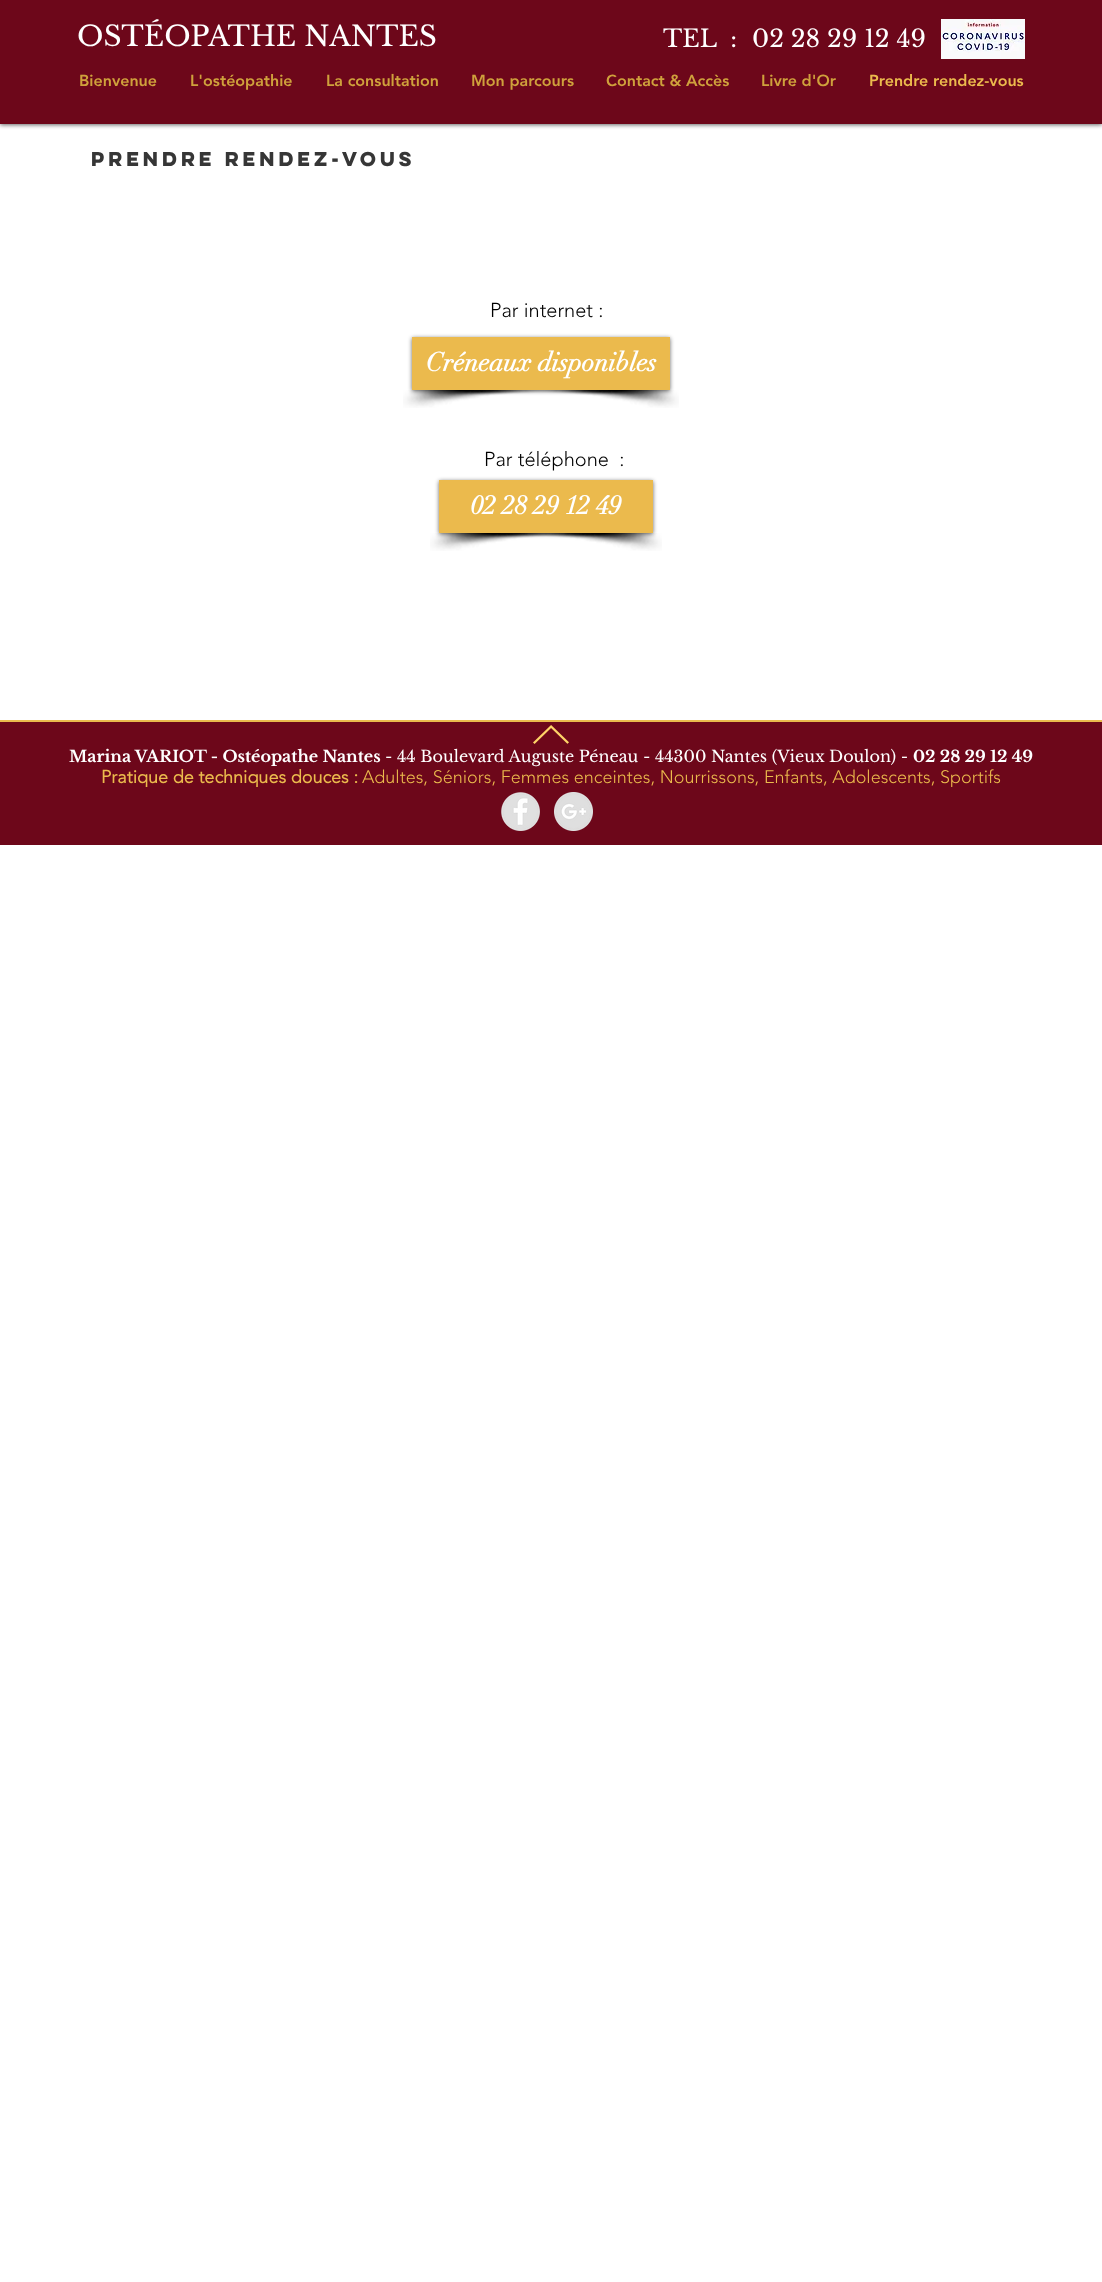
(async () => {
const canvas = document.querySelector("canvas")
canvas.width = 1102
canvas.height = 2282
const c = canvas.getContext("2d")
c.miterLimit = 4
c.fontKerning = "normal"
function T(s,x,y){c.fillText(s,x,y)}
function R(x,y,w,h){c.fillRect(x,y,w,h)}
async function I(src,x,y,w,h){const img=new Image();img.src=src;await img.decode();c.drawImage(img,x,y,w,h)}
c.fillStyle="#fff"
R(0,0,1102,2282)
c.fillStyle="#00000099"
c.filter="blur(2px)"
c.beginPath()
c.rect(0,1,1102,124)
c.fill()
c.filter="none"
c.fillStyle="#6d071a"
R(0,0,1102,124)
c.font="28px Libre Baskerville"
c.fillStyle="#fff"
T("OSTÉOPATHE NANTES",77,46)
c.font="24px Libre Baskerville"
T("TEL  :",663,47)
T("02 28 29 12 49",752,47)
await I("1.png",941,19,84,40)
c.font="900 16px 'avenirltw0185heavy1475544'"
c.fillStyle="#cfa13c"
T("Bienvenue",79,86)
T("L'ostéopathie",190,86)
T("La consultation",326,86)
T("Mon parcours",471,86)
T("Contact & Accès",606,86)
T("Livre d'Or",761,86)
c.fillStyle="#ebba4d"
T("Prendre rendez-vous",869,86)
c.font="bold 18px 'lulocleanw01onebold'"
c.fillStyle="#363636"
T("PRENDRE RENDEZ-VOUS",91,166)
c.font="300 20px 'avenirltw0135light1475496'"
c.fillStyle="#000"
T("Par internet :",490,317)
await I("2.png",403,390,154,18)
await I("3.png",525,390,154,18)
c.fillStyle="#00000099"
c.filter="blur(2px)"
c.beginPath()
c.rect(412,338,258,53)
c.fill()
c.filter="none"
c.fillStyle="#ebba4d"
R(412,337,258,53)
c.font="bold 26px didot"
c.fillStyle="#fff"
T("Créneaux disponibles",426,371)
c.font="300 20px 'avenirltw0135light1475496'"
c.fillStyle="#000"
T("Par téléphone  :",484,466)
await I("2.png",430,533,154,18)
await I("4.png",526,533,136,18)
c.fillStyle="#00000099"
c.filter="blur(2px)"
c.beginPath()
c.rect(439,481,214,53)
c.fill()
c.filter="none"
c.fillStyle="#ebba4d"
R(439,480,214,53)
c.font="bold 26px didot"
c.fillStyle="#fff"
T("02 28 29 12 49",471,514)
c.fillStyle="#6d071a"
R(0,722,1102,123)
c.fillStyle="#ebba4d"
R(0,720,1102,2)
await I("5.png",533,725,36,19)
c.font="bold 16px Libre Baskerville"
c.fillStyle="#fff"
T("Marina VARIOT - Ostéopathe Nantes",69,762)
c.font="16px Libre Baskerville"
T("- 44 Boulevard Auguste Péneau - 44300 Nantes (Vieux Doulon) -",385,762)
c.font="bold 16px Libre Baskerville"
T("02 28 29 12 49",913,762)
c.font="bold 18px 'avenirltw0135light1475496'"
c.fillStyle="#ebba4d"
T("Pratique de techniques douces :",101,783)
c.font="300 18px 'avenirltw0135light1475496'"
T("Adultes, Séniors, Femmes enceintes, Nourrissons, Enfants, Adolescents, Sportifs",362,783)
await I("6.png",501,792,39,39)
await I("7.png",554,792,39,39)
})()
